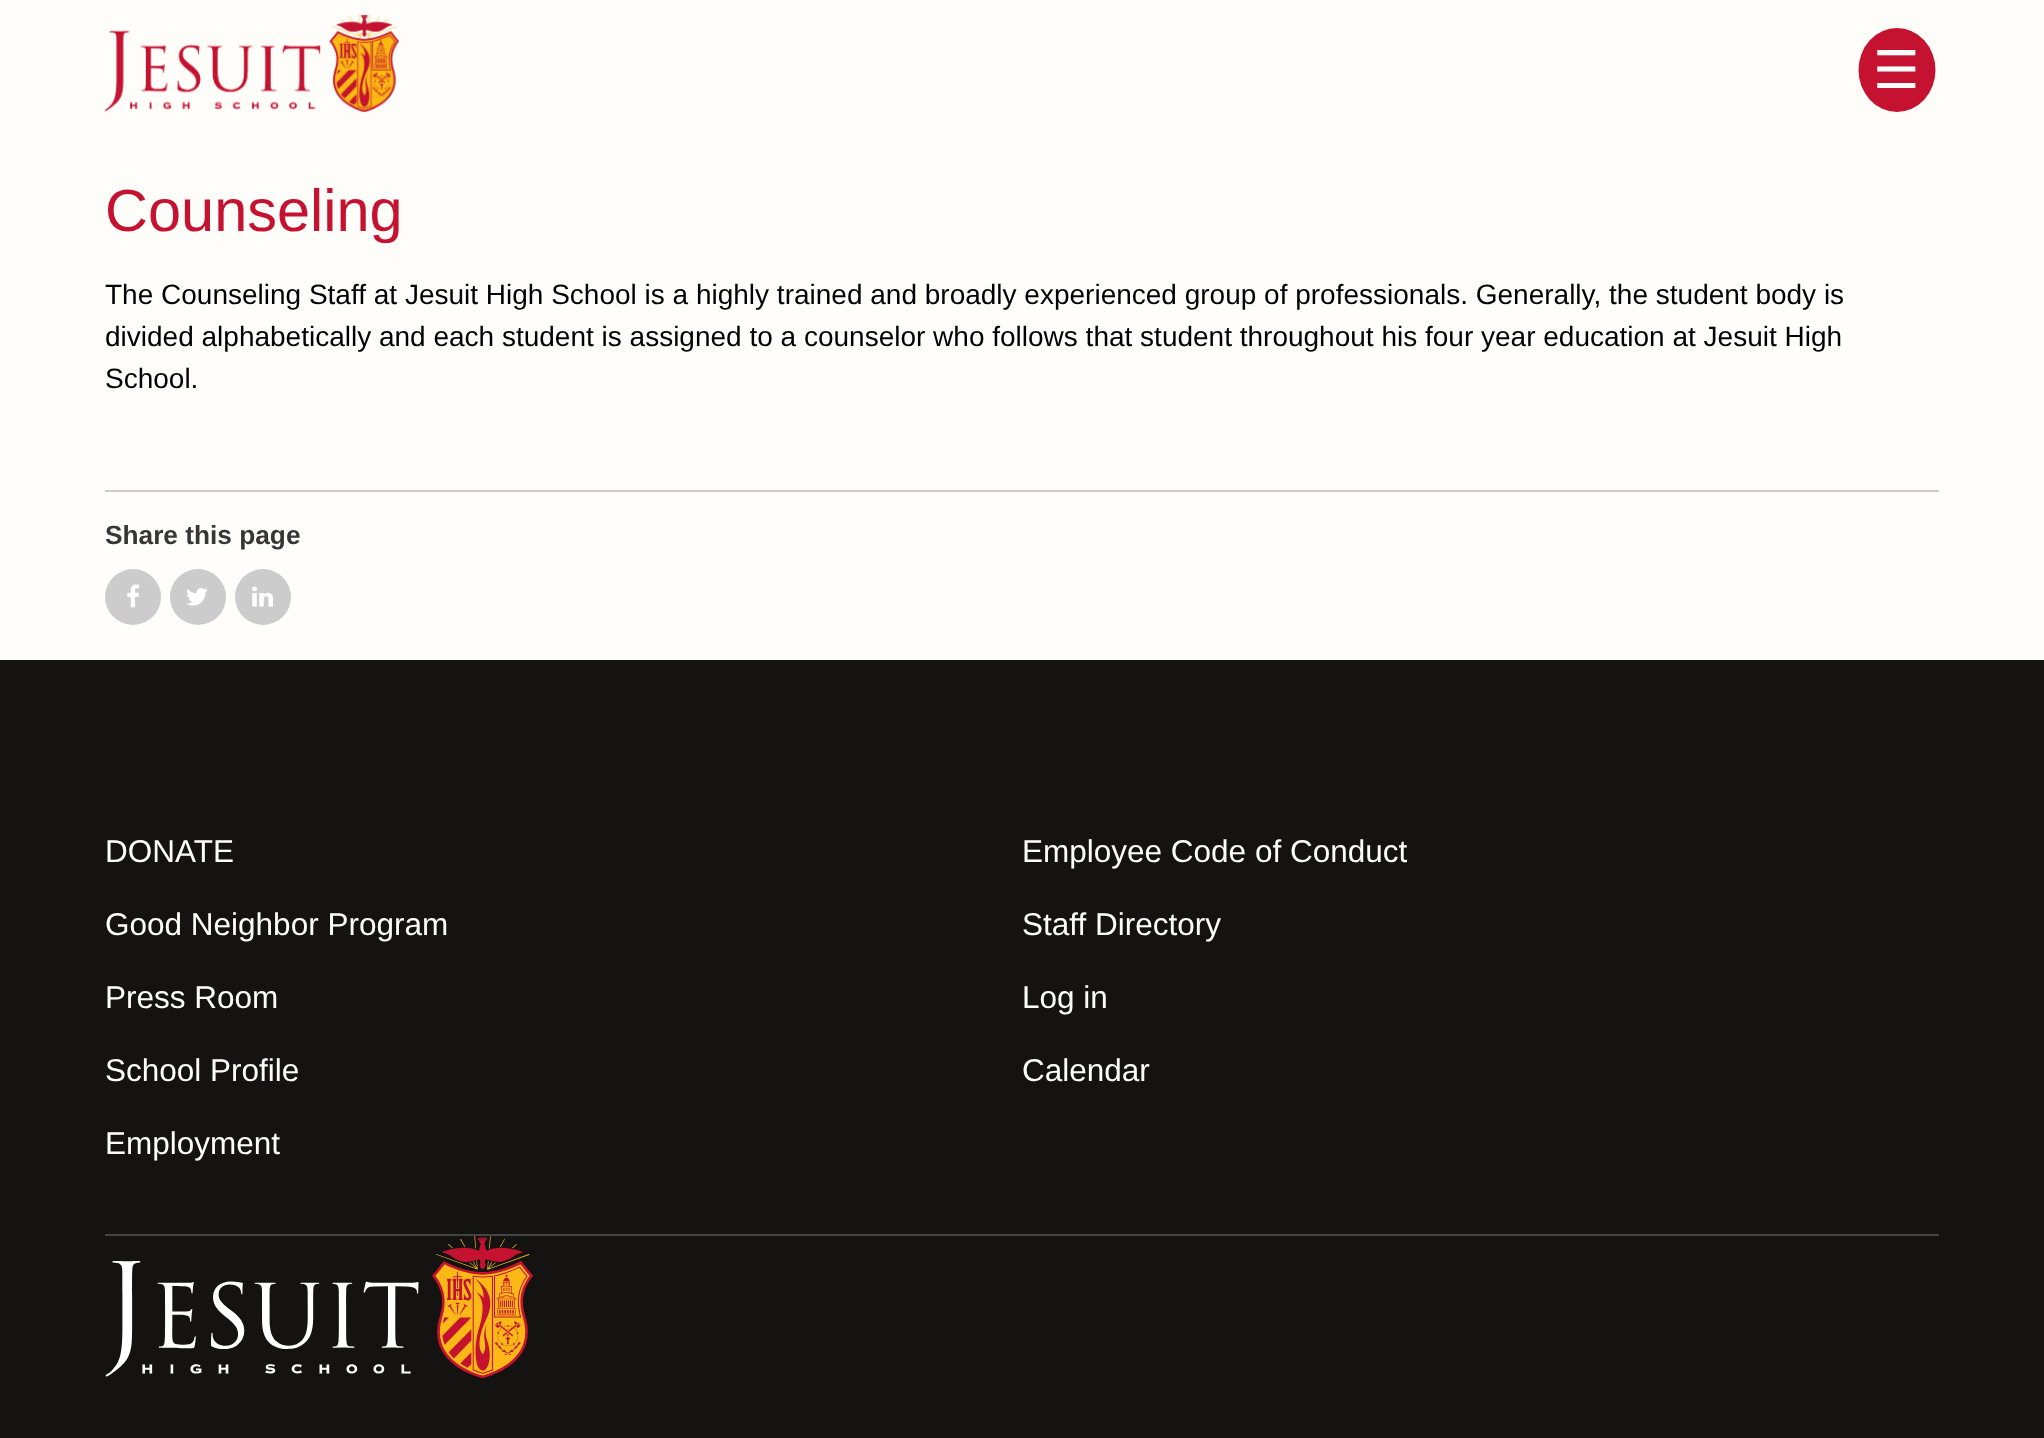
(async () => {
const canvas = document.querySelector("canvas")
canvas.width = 2044
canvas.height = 1438
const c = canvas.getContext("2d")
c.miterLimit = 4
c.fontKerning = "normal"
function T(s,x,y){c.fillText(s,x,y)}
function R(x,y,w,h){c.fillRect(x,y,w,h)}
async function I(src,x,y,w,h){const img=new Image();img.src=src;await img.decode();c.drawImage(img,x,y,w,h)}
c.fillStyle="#fffdfa"
R(0,0,2044,1438)
await I("1.png",105,14,294,98)
c.fillStyle="#c41230"
c.beginPath()
c.ellipse(1897,70,38.5,42,0,0,7)
c.fill()
c.font="52px DejaVu Sans"
c.fillStyle="#fffdfa"
T("☰",1873,88)
c.font="59.5px Liberation Sans"
c.fillStyle="#c41230"
T("Counseling",105,231)
c.font="28px Liberation Sans"
c.fillStyle="#000"
T("The Counseling Staff at Jesuit High School is a highly trained and broadly experienced group of professionals. Generally, the student body is",105,304)
T("divided alphabetically and each student is assigned to a counselor who follows that student throughout his four year education at Jesuit High",105,346)
T("School.",105,388)
c.fillStyle="#ccc"
R(105,490,1834,2)
c.font="bold 26.25px Liberation Sans"
c.fillStyle="#363636"
T("Share this page",105,544)
c.fillStyle="#ccc"
c.beginPath()
c.arc(133,597,28,0,7)
c.fill()
await I("2.png",127,584,13,24)
c.beginPath()
c.arc(198,597,28,0,7)
c.fill()
await I("3.png",186,588,22,18)
c.beginPath()
c.arc(263,597,28,0,7)
c.fill()
await I("4.png",252,586,21,21)
c.fillStyle="#141311"
R(0,660,2044,778)
c.fillStyle="#454441"
R(105,1234,1834,2)
c.font="31.5px Liberation Sans"
c.fillStyle="#fffdfa"
T("DONATE",105,862)
T("Good Neighbor Program",105,935)
T("Press Room",105,1008)
T("School Profile",105,1081)
T("Employment",105,1154)
T("Employee Code of Conduct",1022,862)
T("Staff Directory",1022,935)
T("Log in",1022,1008)
T("Calendar",1022,1081)
await I("5.png",105,1236,428,143)
})()
